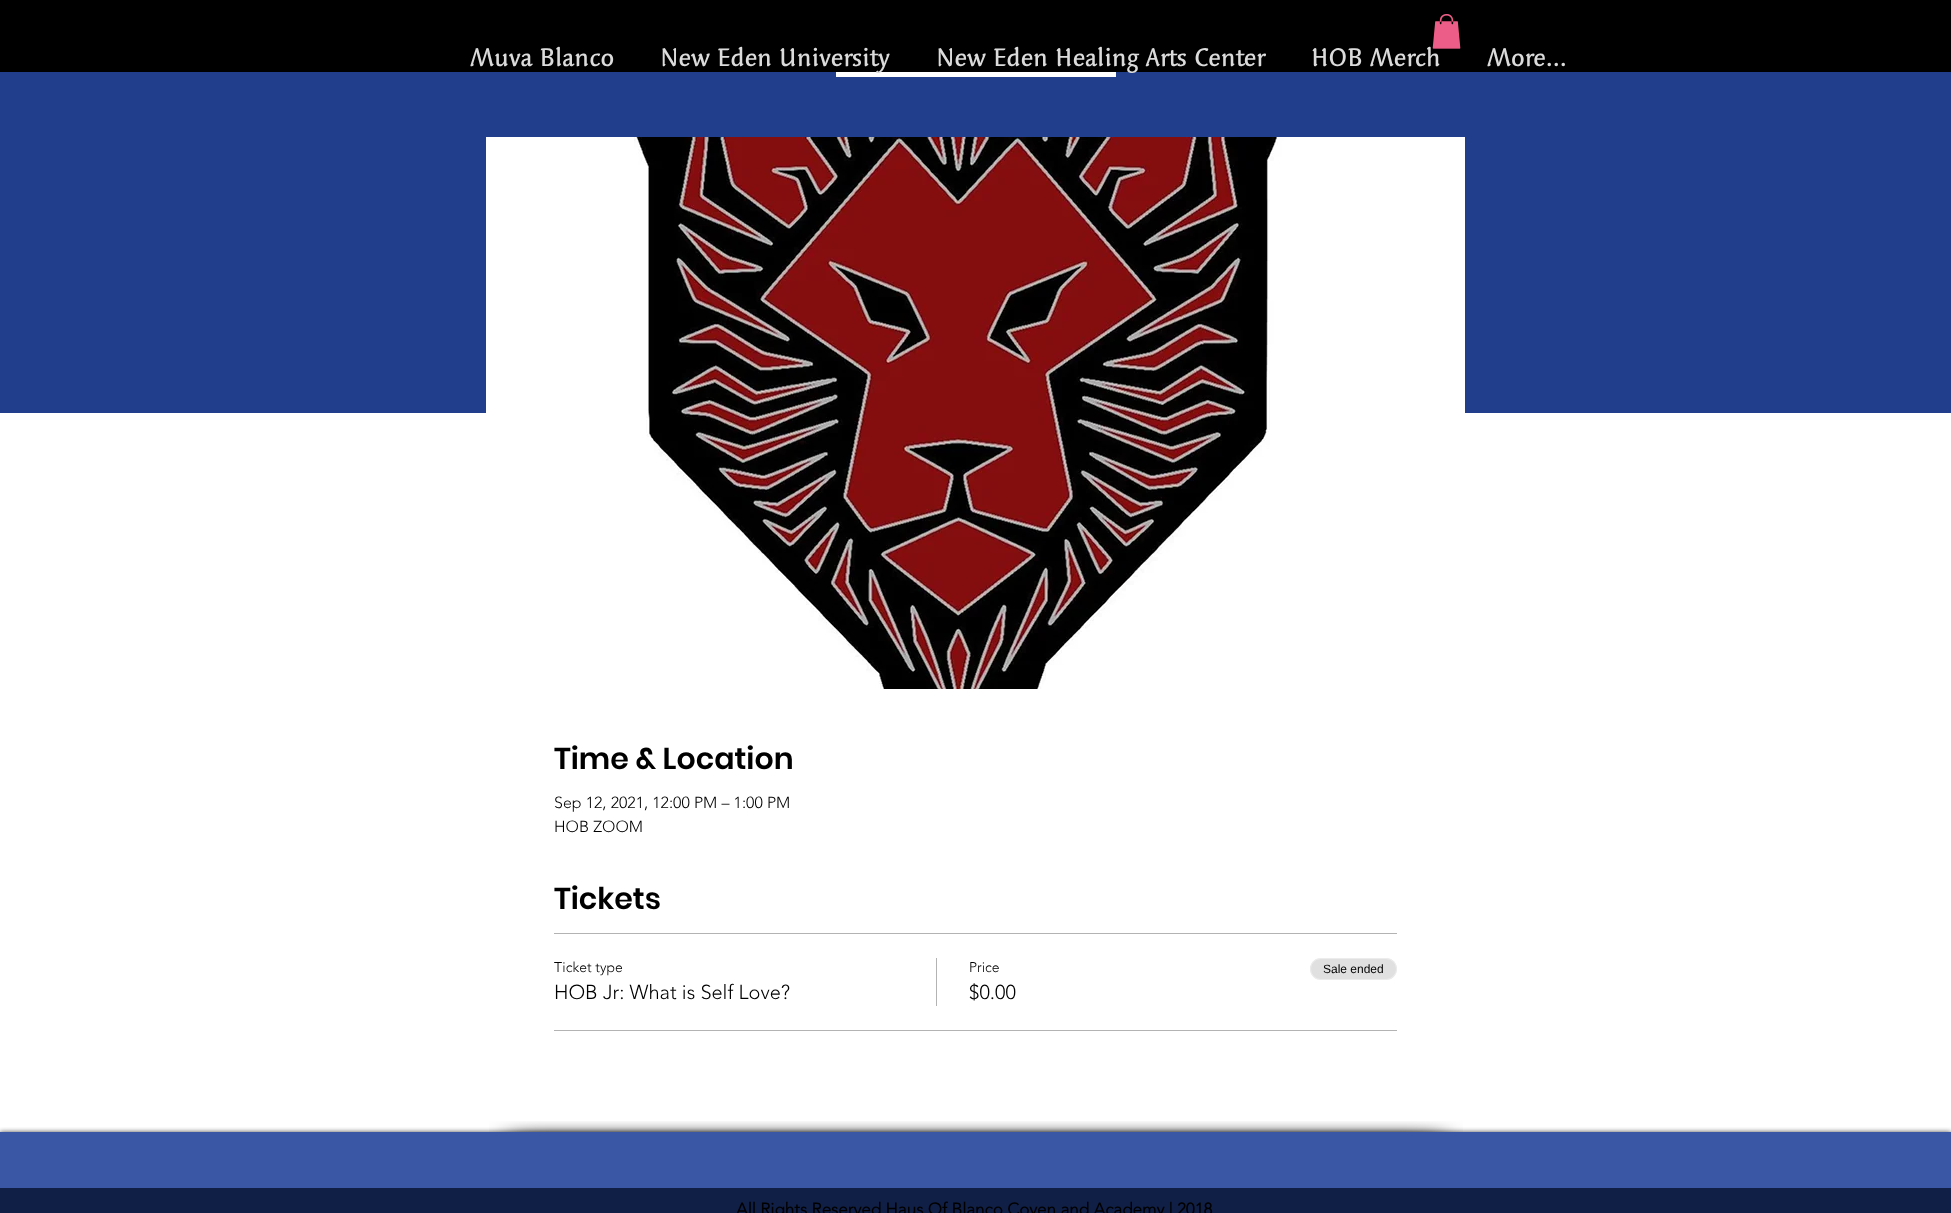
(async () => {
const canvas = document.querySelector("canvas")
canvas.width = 1951
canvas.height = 1213
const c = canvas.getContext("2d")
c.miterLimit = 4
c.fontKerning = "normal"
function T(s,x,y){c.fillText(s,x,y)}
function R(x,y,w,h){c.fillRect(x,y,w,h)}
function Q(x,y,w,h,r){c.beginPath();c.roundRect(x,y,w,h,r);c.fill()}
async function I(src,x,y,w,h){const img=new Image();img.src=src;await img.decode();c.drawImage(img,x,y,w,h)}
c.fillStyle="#3a57a6"
R(0,0,1951,1213)
c.fillStyle="#000"
R(0,0,1951,72)
c.font="39px 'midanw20'"
c.fillStyle="#dbdbdb"
T("HOB Merch",1311,66)
await I("1.png",1432,14,29,35)
T("Muva Blanco",470,66)
c.fillStyle="#213e8c"
R(0,72,1951,341)
c.fillStyle="#fff"
R(836,72,280,5)
c.fillStyle="#dbdbdb"
T("New Eden University",660,66)
T("New Eden Healing Arts Center",936,66)
T("More...",1487,66)
c.fillStyle="#fff"
R(0,413,1951,719)
await I("2.png",486,137,979,552)
c.font="600 30px Poppins"
c.fillStyle="#000"
T("Time & Location",554,769)
c.font="300 16px 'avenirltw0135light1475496'"
T("Sep 12, 2021, 12:00 PM – 1:00 PM",554,808)
T("HOB ZOOM",554,832)
c.font="600 30px Poppins"
T("Tickets",554,909)
c.fillStyle="#b3b3b3"
R(554,933,843,1)
R(554,1030,843,1)
c.font="300 14px 'avenirltw0135light1475496'"
c.fillStyle="#000"
T("Ticket type",554,972)
c.font="300 20px 'avenirltw0135light1475496'"
T("HOB Jr: What is Self Love?",554,999)
c.fillStyle="#b3b3b3"
R(936,958,1,48)
c.font="300 14px 'avenirltw0135light1475496'"
c.fillStyle="#000"
T("Price",969,972)
c.font="300 20px 'avenirltw0135light1475496'"
T("$0.00",969,999)
c.fillStyle="#e0e0e0"
Q(1310,958,87,22,11)
c.beginPath()
c.roundRect(1310.5,958.5,86,21,10.5)
c.strokeStyle="#ffffff66"
c.stroke()
c.font="12px Liberation Sans"
c.fillStyle="#000"
T("Sale ended",1323,973)
c.save()
c.beginPath()
c.rect(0,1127,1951,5)
c.clip()
c.fillStyle="#000000b3"
c.filter="blur(2.5px)"
c.beginPath()
c.rect(0,1132,1951,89)
c.fill()
c.filter="none"
c.restore()
await I("3.png",489,1121,97,11)
await I("4.png",586,1121,780,11)
await I("5.png",1366,1121,97,11)
c.fillStyle="#101f46"
R(0,1188,1951,25)
c.font="bold 17px 'avenirltw0135light1475496'"
c.fillStyle="#000"
T("All Rights Reserved Haus Of Blanco Coven and Academy | 2018",736,1215)
})()
